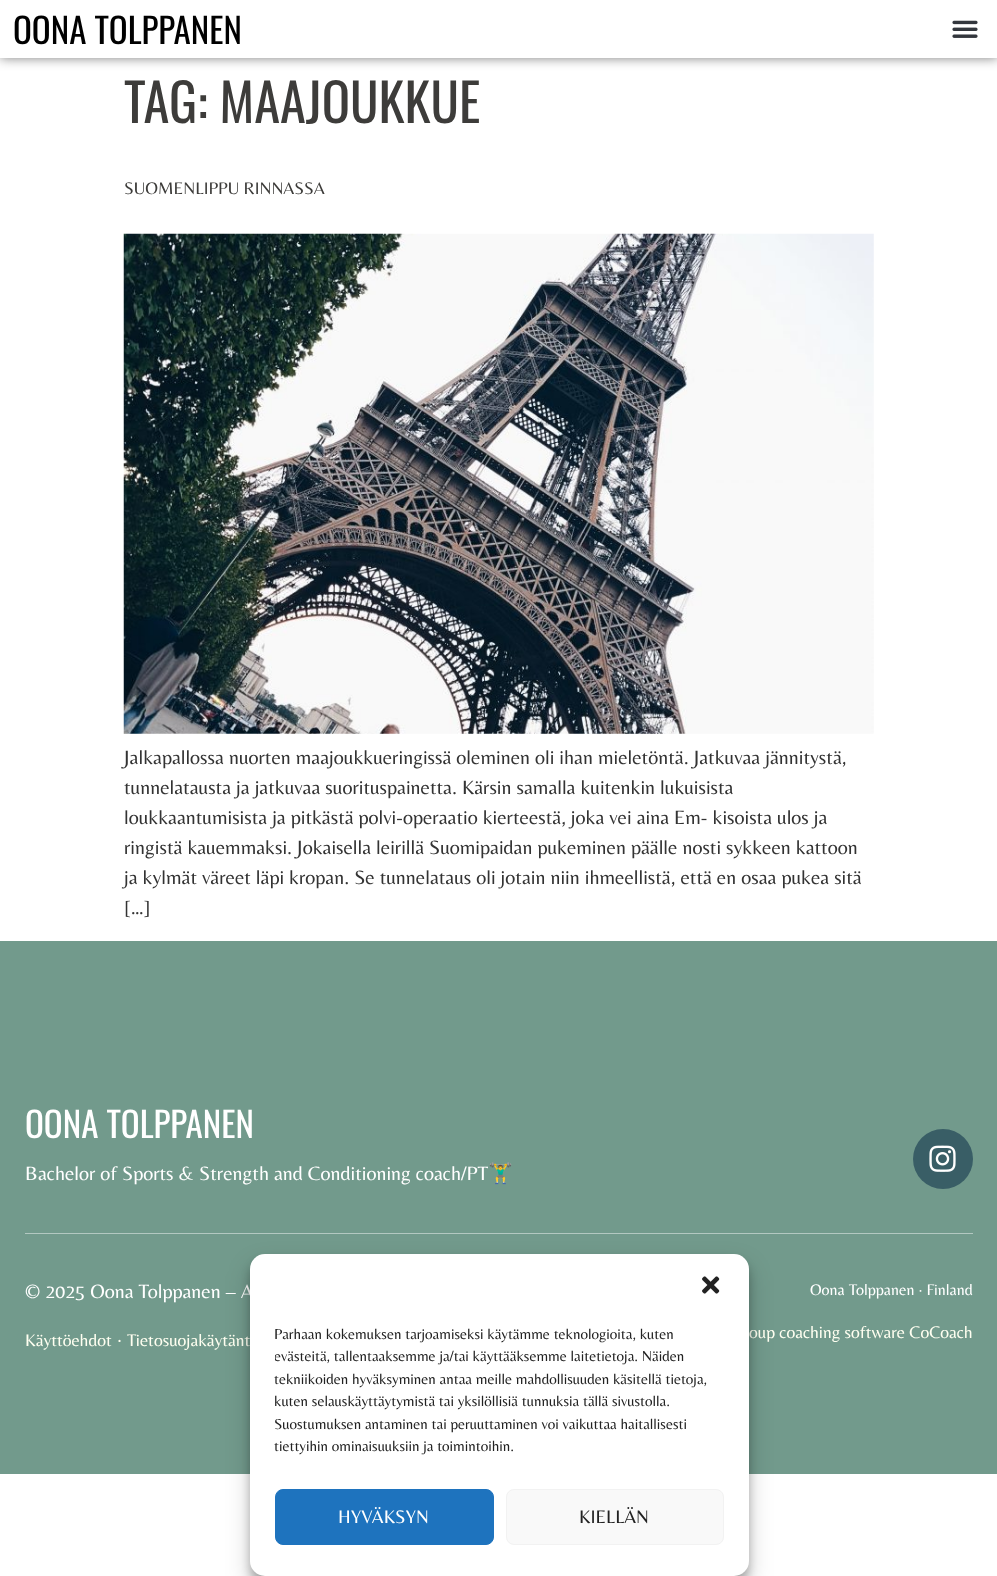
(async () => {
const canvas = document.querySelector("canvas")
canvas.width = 997
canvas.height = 1576
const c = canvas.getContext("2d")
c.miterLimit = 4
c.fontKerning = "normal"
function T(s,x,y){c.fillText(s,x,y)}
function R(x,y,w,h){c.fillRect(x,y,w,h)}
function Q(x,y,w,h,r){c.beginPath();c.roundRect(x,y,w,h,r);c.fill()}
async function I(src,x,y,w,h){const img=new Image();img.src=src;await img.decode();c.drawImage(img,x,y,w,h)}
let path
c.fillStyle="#fff"
R(0,0,997,1576)
c.save()
path = new Path2D("M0 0h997v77h-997zm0 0h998v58h-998z")
c.clip(path,"evenodd")
c.fillStyle="#00000080"
c.filter="blur(6px)"
c.beginPath()
c.rect(0,0,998,58)
c.fill()
c.filter="none"
c.restore()
c.font="35px Oswald"
c.fillStyle="#000"
T("OONA TOLPPANEN",13,44)
await I("1.png",952,20,26,18)
c.font="52.5px Oswald"
c.fillStyle="#3d3c3a"
T("TAG: MAAJOUKKUE",124,123)
c.font="17.5px Belleza"
T("SUOMENLIPPU RINNASSA",124,194)
await I("2.png",123,233,751,501)
c.font="20px Belleza"
c.fillStyle="#333"
T("Jalkapallossa nuorten maajoukkueringissä oleminen oli ihan mieletöntä. Jatkuvaa jännitystä,",124,764)
T("tunnelatausta ja jatkuvaa suorituspainetta. Kärsin samalla kuitenkin lukuisista",124,794)
T("loukkaantumisista ja pitkästä polvi-operaatio kierteestä, joka vei aina Em- kisoista ulos ja",124,824)
T("ringistä kauemmaksi. Jokaisella leirillä Suomipaidan pukeminen päälle nosti sykkeen kattoon",124,854)
T("ja kylmät väreet läpi kropan. Se tunnelataus oli jotain niin ihmeellistä, että en osaa pukea sitä",124,884)
T("[…]",124,914)
c.fillStyle="#729a8c"
R(0,941,997,533)
c.font="35px Oswald"
c.fillStyle="#fff"
T("OONA TOLPPANEN",25,1138)
c.font="20px Belleza"
T("Bachelor of Sports & Strength and Conditioning coach/PT",25,1180)
c.font="20px Noto Color Emoji"
T("🏋‍♂️",488,1180)
c.fillStyle="#395e66"
c.beginPath()
c.arc(943,1159,30,0,7)
c.fill()
await I("3.png",929,1145,27,27)
c.fillStyle="#b3c8c1"
R(25,1233,948,1)
c.font="20px Belleza"
c.fillStyle="#fff"
T("© 2025 Oona Tolppanen – A",25,1298)
c.font="17.5px Belleza"
c.fillStyle="#fffff1"
T("Käyttöehdot",25,1346)
c.font="20px Belleza"
T("·",117,1346)
c.font="17.5px Belleza"
T("Tietosuojakäytänt",127,1346)
c.font="16px Belleza"
c.fillStyle="#fff"
T("Oona Tolppanen · Finland",810,1295)
c.font="17.5px Belleza"
c.fillStyle="#fffff1"
T("oup coaching software CoCoach",749,1338)
c.fillStyle="#0000003b"
c.filter="blur(4px)"
c.beginPath()
c.roundRect(250,1261,499,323,15)
c.fill()
c.filter="none"
c.fillStyle="#00000030"
c.filter="blur(12.5px)"
c.beginPath()
c.roundRect(250,1266,499,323,15)
c.fill()
c.filter="none"
c.fillStyle="#fff"
Q(250,1254,499,322,15)
await I("4.png",702,1276,18,18)
c.font="15px Belleza"
c.fillStyle="#222"
T("Parhaan kokemuksen tarjoamiseksi käytämme teknologioita, kuten",274,1339)
c.save()
c.beginPath()
c.rect(275,1323,449,141)
c.clip()
T("evästeitä, tallentaaksemme ja/tai käyttääksemme laitetietoja. Näiden",274,1361)
c.restore()
T("tekniikoiden hyväksyminen antaa meille mahdollisuuden käsitellä tietoja,",274,1384)
T("kuten selauskäyttäytymistä tai yksilöllisiä tunnuksia tällä sivustolla.",274,1406)
T("Suostumuksen antaminen tai peruuttaminen voi vaikuttaa haitallisesti",274,1429)
T("tiettyihin ominaisuuksiin ja toimintoihin.",274,1451)
c.fillStyle="#1e73be"
c.beginPath()
c.roundRect(275.5,1489.5,218,55,7.5)
c.fill()
c.strokeStyle="#1e73be"
c.stroke()
c.font="18.75px Belleza"
c.fillStyle="#fff"
T("HYVÄKSYN",338,1523)
c.fillStyle="#f9f9f9"
c.beginPath()
c.roundRect(506.5,1489.5,217,55,7.5)
c.fill()
c.strokeStyle="#f2f2f2"
c.stroke()
c.fillStyle="#222"
T("KIELLÄN",579,1523)
})()
